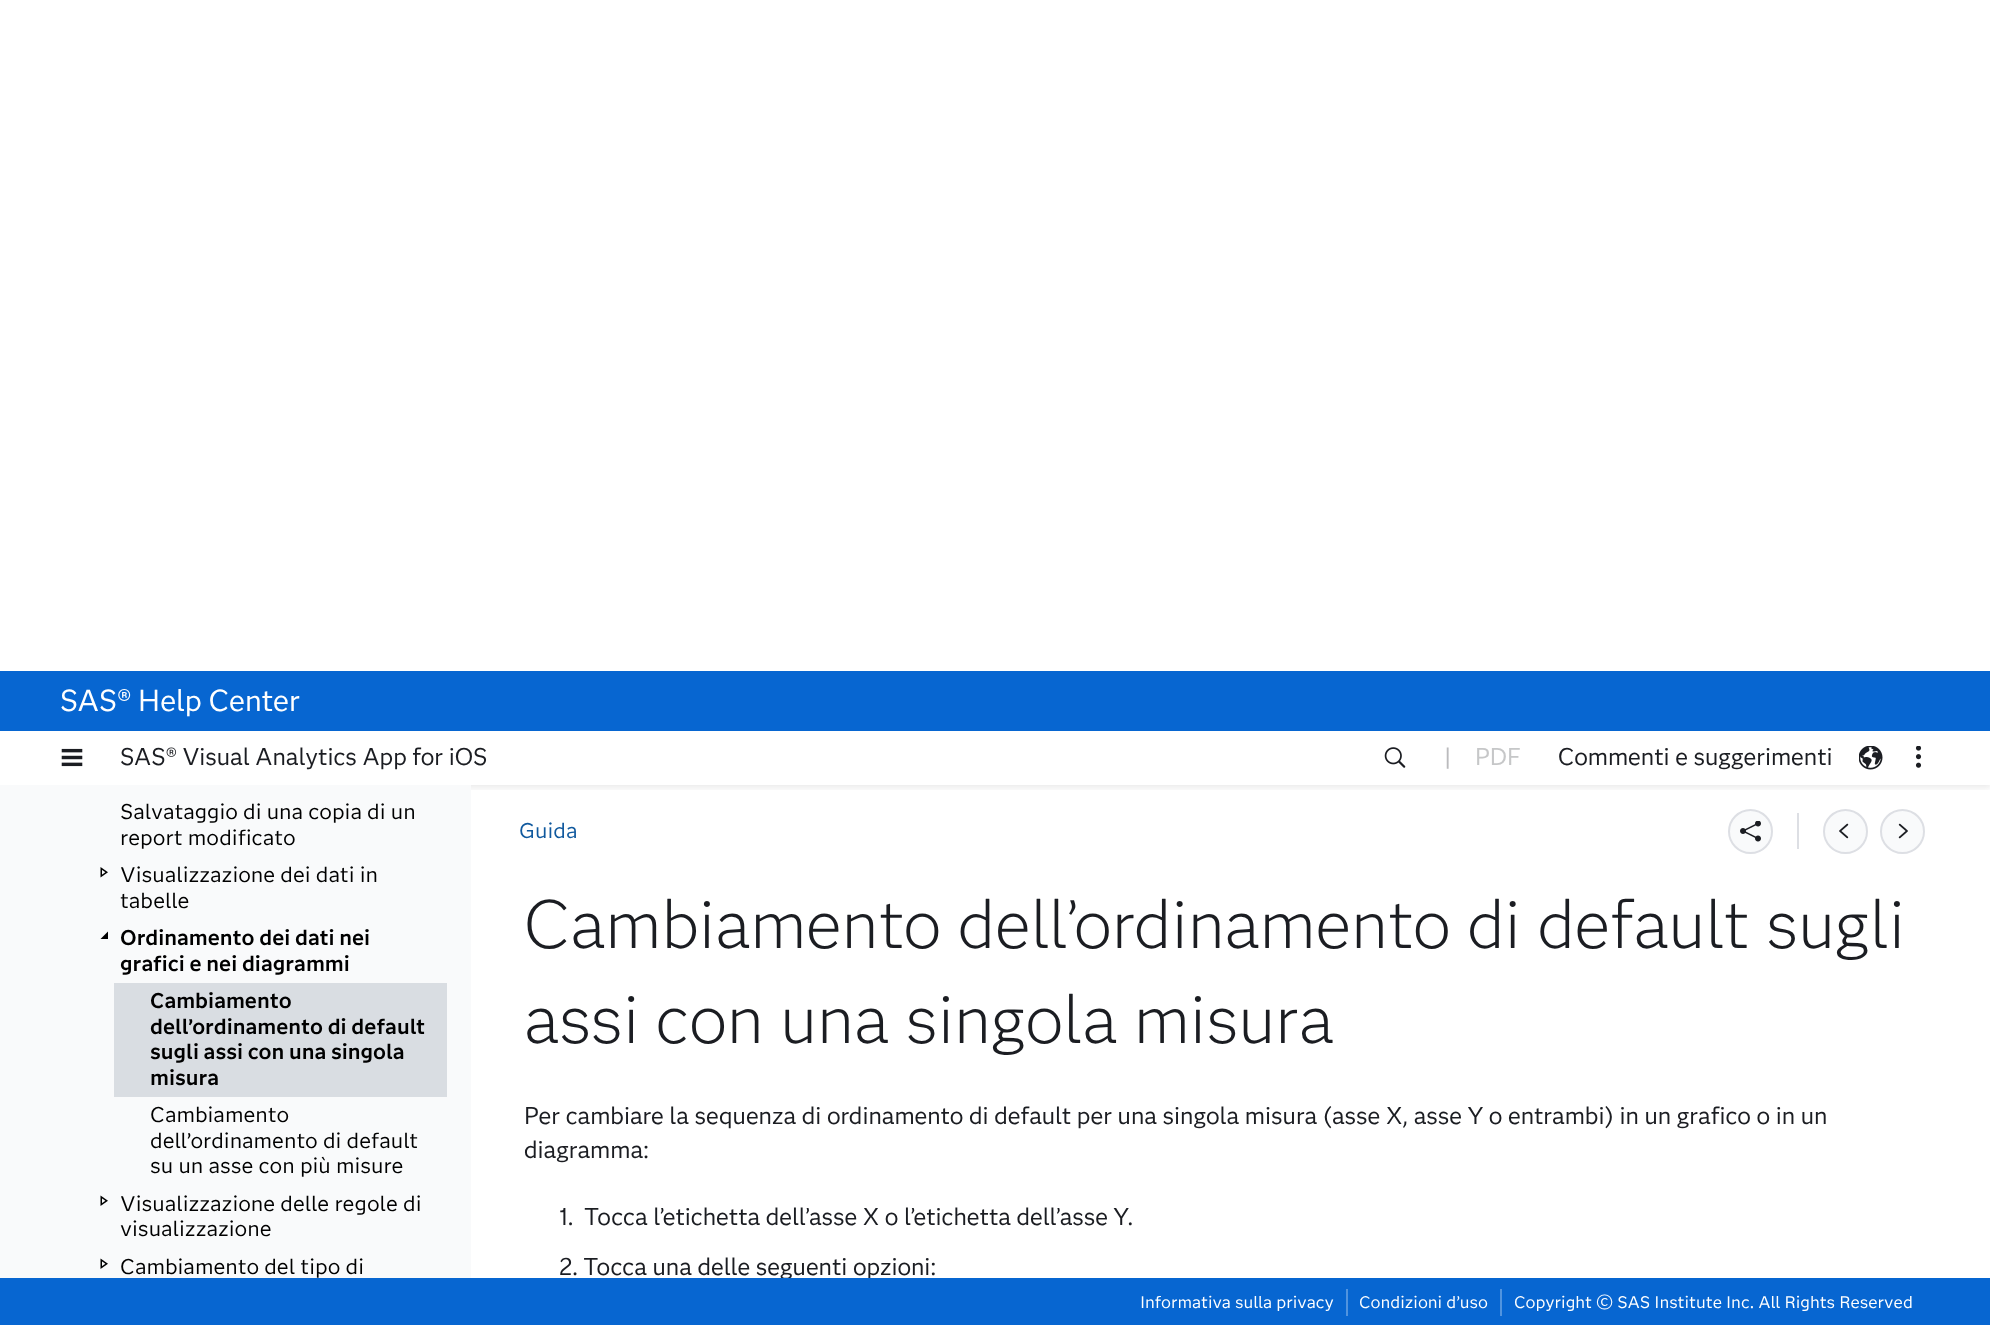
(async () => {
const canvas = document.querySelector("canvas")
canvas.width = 1990
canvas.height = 1325
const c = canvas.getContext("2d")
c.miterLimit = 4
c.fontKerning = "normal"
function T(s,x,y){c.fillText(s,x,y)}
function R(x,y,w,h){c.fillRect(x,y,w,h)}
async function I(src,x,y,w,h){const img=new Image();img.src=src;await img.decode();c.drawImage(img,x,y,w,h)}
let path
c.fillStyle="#fff"
R(0,0,1990,1325)
c.save()
c.beginPath()
c.rect(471,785,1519,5)
c.clip()
c.fillStyle="#00000014"
c.filter="blur(3px)"
c.beginPath()
c.rect(0,666,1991,122)
c.fill()
c.filter="none"
c.restore()
c.fillStyle="#0766d1"
R(0,671,1990,60)
c.font="30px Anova"
c.fillStyle="#fff"
T("SAS® Help Center",60,711)
R(0,784,1990,1)
await I("1.png",61,748,22,19)
c.font="24px Anova"
c.fillStyle="#1b1d22"
T("SAS® Visual Analytics App for iOS",120,765)
await I("2.png",1384,747,22,21)
c.fillStyle="#bbbbbd"
T("|",1444,765)
c.fillStyle="#c6c7c8"
T("PDF",1475,765)
c.fillStyle="#1b1d22"
T("Commenti e suggerimenti",1558,765)
await I("3.png",1859,746,24,24)
await I("4.png",1915,746,7,22)
c.fillStyle="#f9fafb"
R(0,785,471,493)
c.font="21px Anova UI"
c.fillStyle="#000"
T("Salvataggio di una copia di un",120,819)
T("report modificato",120,845)
await I("5.png",100,867,8,11)
T("Visualizzazione dei dati in",120,882)
T("tabelle",120,908)
path = new Path2D("M108 931.5v7.5h-7.5z")
c.fill(path)
c.font="bold 21px Anova UI"
T("Ordinamento dei dati nei",120,945)
T("grafici e nei diagrammi",120,971)
c.fillStyle="#d9dde2"
R(114,983,333,114)
c.fillStyle="#000"
T("Cambiamento",150,1008)
T("dell’ordinamento di default",150,1034)
T("sugli assi con una singola",150,1059)
T("misura",150,1085)
c.font="21px Anova UI"
T("Cambiamento",150,1122)
T("dell’ordinamento di default",150,1148)
T("su un asse con più misure",150,1173)
await I("6.png",100,1195,8,11)
T("Visualizzazione delle regole di",120,1211)
T("visualizzazione",120,1236)
await I("6.png",100,1258,8,11)
T("Cambiamento del tipo di",120,1274)
c.fillStyle="#10599e"
T("Guida",519,838)
c.fillStyle="#f9fafb"
c.beginPath()
c.arc(1750.5,831.5,21.5,0,7)
c.fill()
c.strokeStyle="#dddfe4"
c.lineWidth=2
c.stroke()
await I("7.png",1740,821,21,21)
c.fillStyle="#dddfe4"
R(1797,813,2,36)
c.fillStyle="#f9fafb"
c.beginPath()
c.arc(1845.5,831.5,21.5,0,7)
c.fill()
c.stroke()
await I("8.png",1839,823,10,16)
c.beginPath()
c.arc(1902.5,831.5,21.5,0,7)
c.fill()
c.stroke()
await I("9.png",1898,823,10,16)
c.font="300 67.5px Anova"
c.fillStyle="#1b1d22"
T("Cambiamento dell’ordinamento di default sugli",524,948)
T("assi con una singola misura",524,1043)
c.font="24px Anova"
T("Per cambiare la sequenza di ordinamento di default per una singola misura (asse X, asse Y o entrambi) in un grafico o in un",524,1124)
T("diagramma:",524,1158)
T("1.",559,1225)
T("Tocca l’etichetta dell’asse X o l’etichetta dell’asse Y.",584,1225)
T("2. Tocca una delle seguenti opzioni:",559,1275)
c.fillStyle="#0766d1"
R(0,1278,1990,47)
c.font="16.5px Anova UI"
c.fillStyle="#fff"
T("Informativa sulla privacy",1140,1308)
c.fillStyle="#5194df"
R(1346,1289,2,27)
c.fillStyle="#fff"
T("Condizioni d’uso",1359,1308)
c.fillStyle="#5194df"
R(1500,1289,2,27)
c.fillStyle="#fff"
T("Copyright © SAS Institute Inc. All Rights Reserved",1514,1308)
})()
